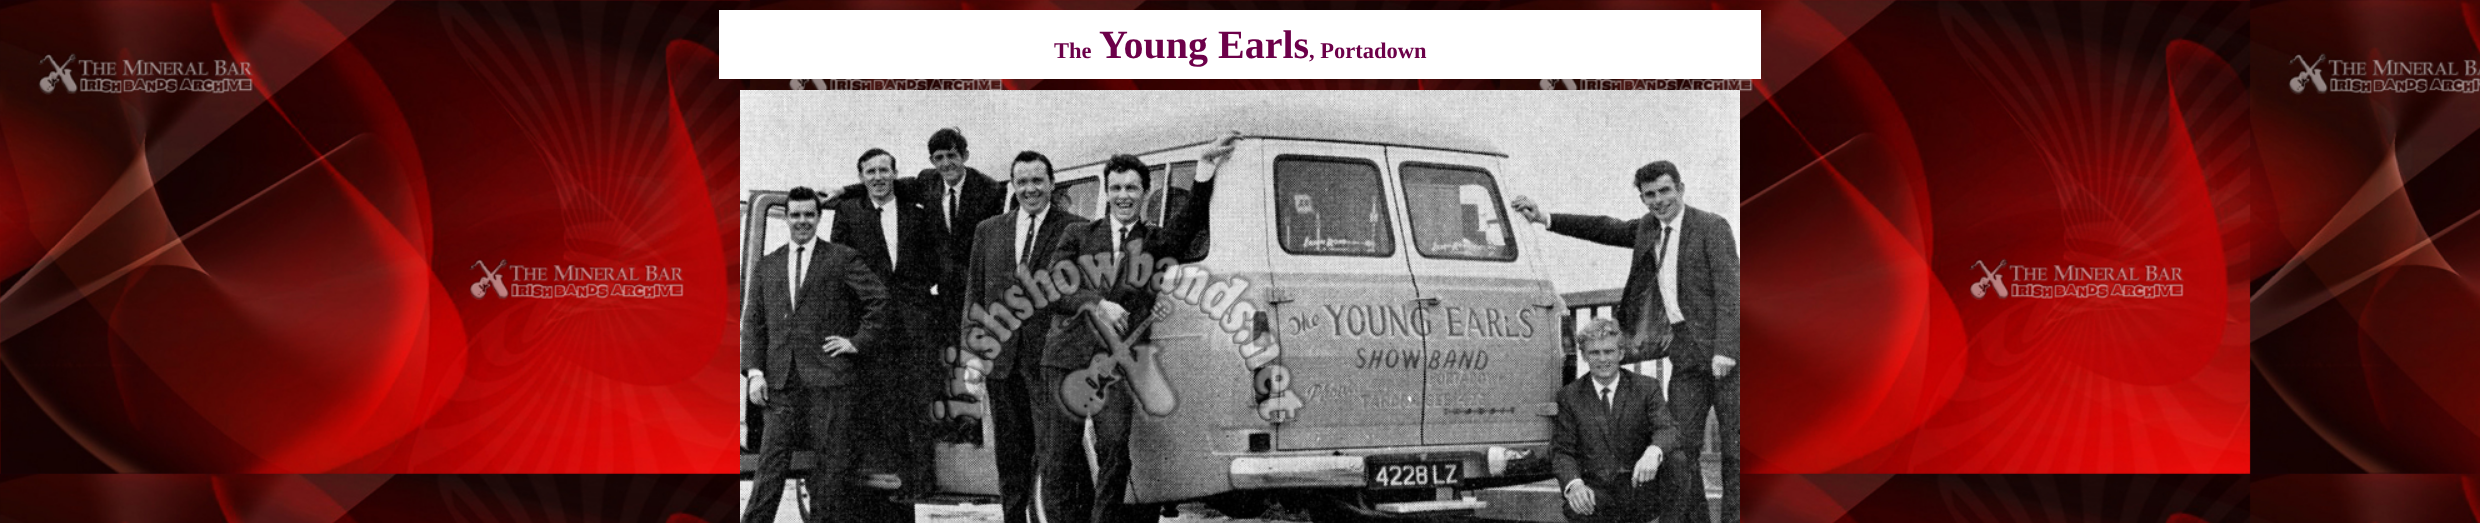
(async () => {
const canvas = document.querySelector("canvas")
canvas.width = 2480
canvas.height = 523
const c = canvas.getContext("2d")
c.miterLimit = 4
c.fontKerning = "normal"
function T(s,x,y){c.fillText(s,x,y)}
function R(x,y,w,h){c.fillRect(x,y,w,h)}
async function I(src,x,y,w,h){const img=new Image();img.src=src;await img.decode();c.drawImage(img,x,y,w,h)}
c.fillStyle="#fff"
R(0,0,2480,523)
await I("1.png",0,0,2480,523)
R(719,10,1042,69)
c.font="bold 22.5px Liberation Serif"
c.fillStyle="#6c0049"
T("The",1054,58)
c.font="bold 40px Liberation Serif"
T("Young Earls",1099,58)
c.font="bold 22.5px Liberation Serif"
T(", Portadown",1309,58)
await I("2.png",740,90,1000,433)
})()
